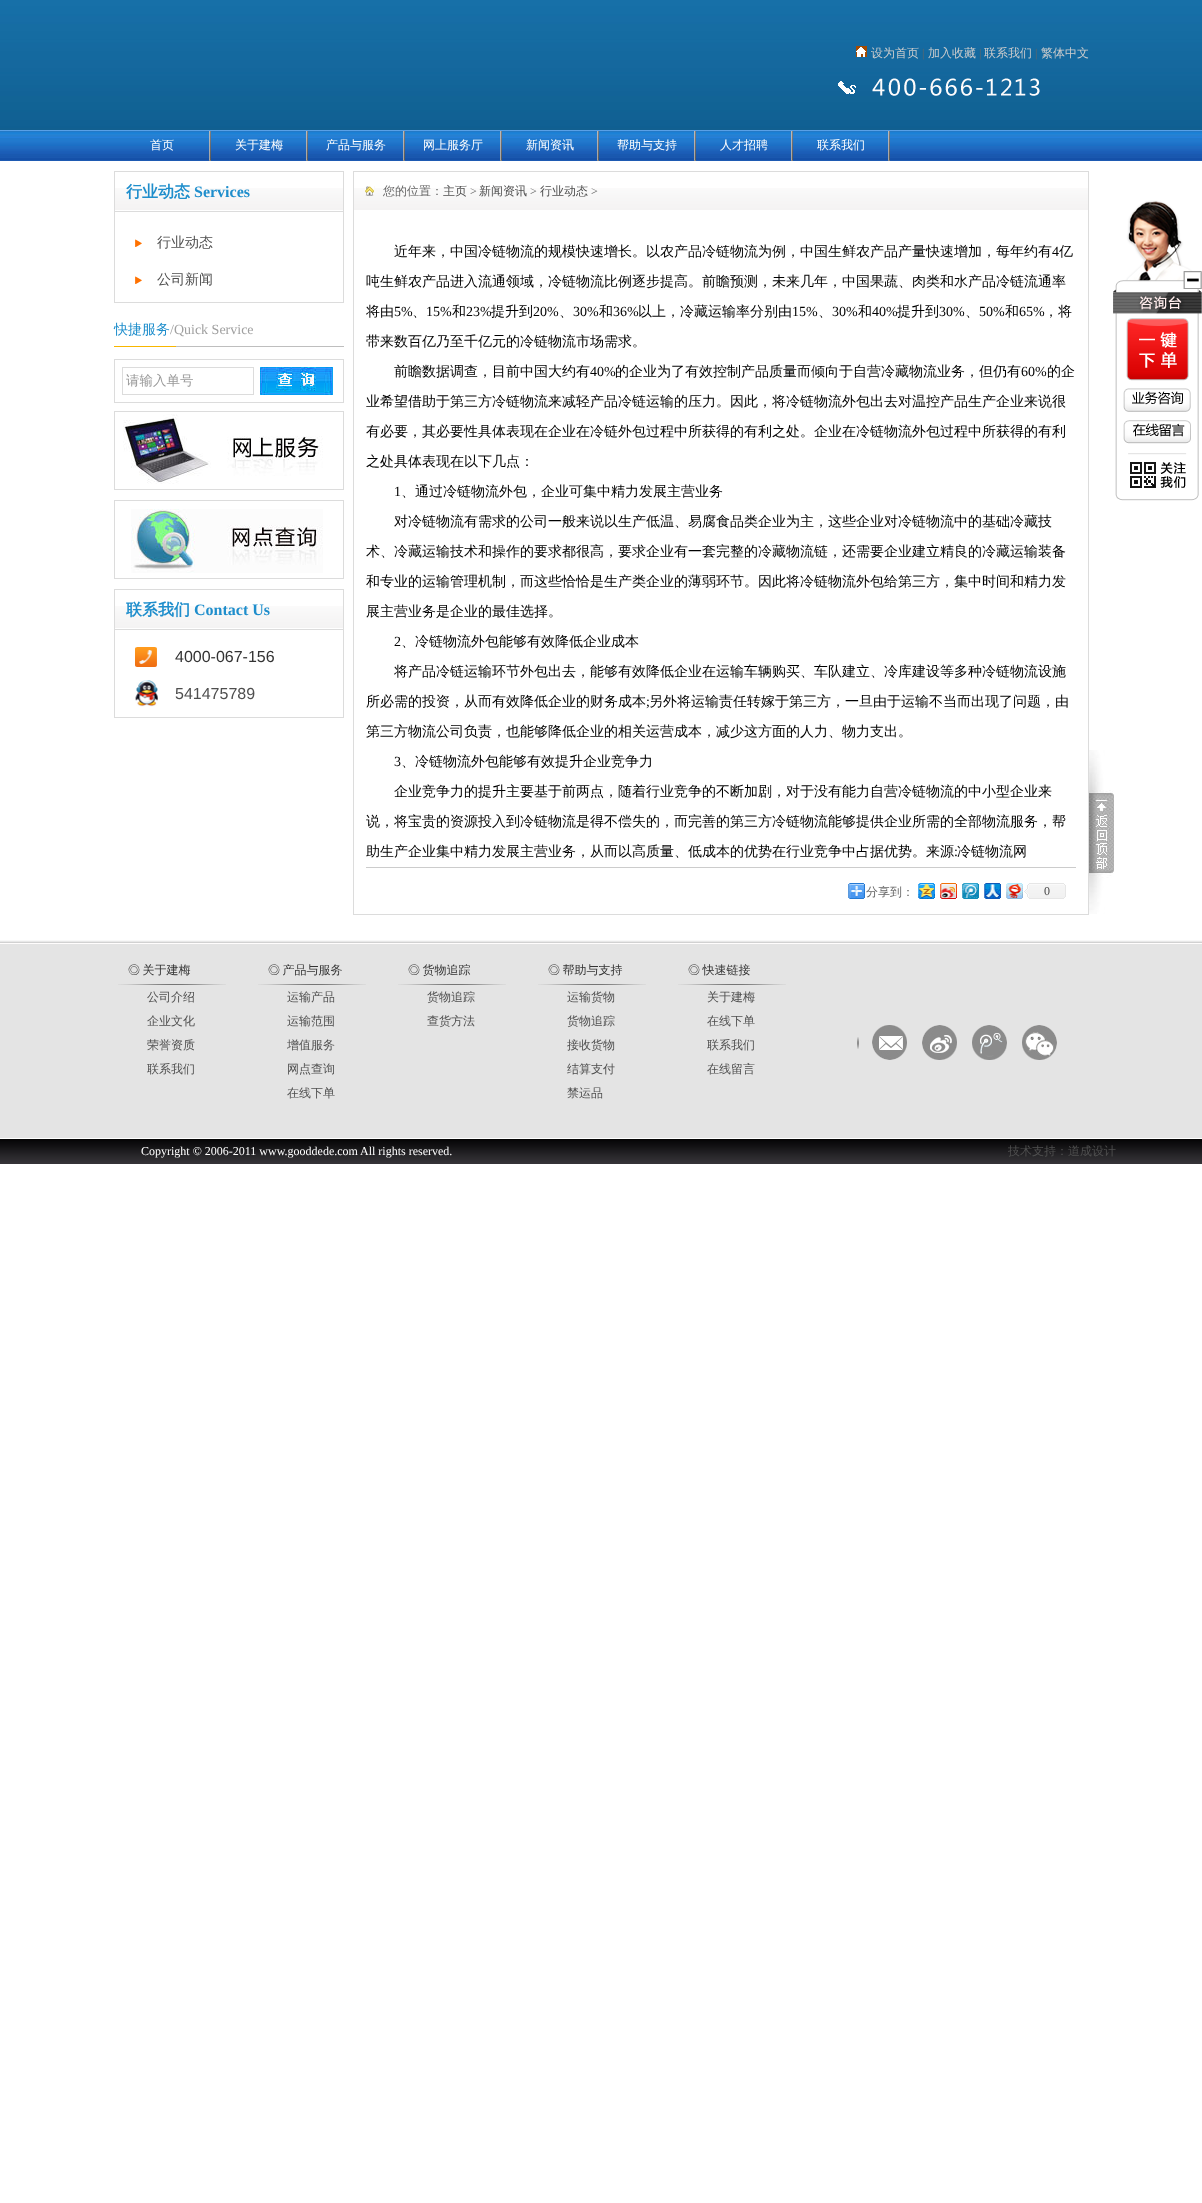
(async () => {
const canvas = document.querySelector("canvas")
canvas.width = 1202
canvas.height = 2203
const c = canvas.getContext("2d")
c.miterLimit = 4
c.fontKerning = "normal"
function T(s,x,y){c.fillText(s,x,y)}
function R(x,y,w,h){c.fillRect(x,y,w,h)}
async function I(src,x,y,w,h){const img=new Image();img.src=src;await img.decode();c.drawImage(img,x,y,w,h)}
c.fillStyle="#fff"
R(0,0,1202,2203)
await I("1.png",0,0,1202,130)
await I("2.png",856,46,11,11)
c.font="500 12px WenQuanYi Zen Hei"
c.fillStyle="#ccc"
T("设为首页",871,57)
c.font="12px Liberation Serif"
c.fillStyle="#666"
T("|",922,57)
c.font="500 12px WenQuanYi Zen Hei"
c.fillStyle="#ccc"
T("加入收藏",928,57)
c.font="12px Liberation Serif"
c.fillStyle="#666"
T("|",979,57)
c.font="500 12px WenQuanYi Zen Hei"
c.fillStyle="#ccc"
T("联系我们",984,57)
c.font="12px Liberation Serif"
c.fillStyle="#666"
T("|",1035,57)
c.font="500 12px WenQuanYi Zen Hei"
c.fillStyle="#ccc"
T("繁体中文",1041,57)
await I("3.png",838,78,202,18)
await I("4.png",0,130,1202,31)
await I("5.png",209,131,2,30)
c.fillStyle="#fff"
T("首页",150,149)
await I("5.png",306,131,2,30)
T("关于建梅",235,149)
await I("5.png",403,131,2,30)
T("产品与服务",326,149)
await I("5.png",500,131,2,30)
T("网上服务厅",423,149)
await I("5.png",597,131,2,30)
T("新闻资讯",526,149)
await I("5.png",694,131,2,30)
T("帮助与支持",617,149)
await I("5.png",791,131,2,30)
T("人才招聘",720,149)
await I("5.png",888,131,2,30)
T("联系我们",817,149)
c.strokeStyle="#dcdcdc"
c.strokeRect(114.5,171.5,229,131)
await I("6.png",115,188,228,22)
c.fillStyle="#dcdcdc"
R(115,211,228,1)
c.font="bold 16px WenQuanYi Zen Hei"
c.fillStyle="#1f8ecc"
T("行业动态",126,197)
c.font="bold 16px Liberation Serif"
T("Services",194,197)
await I("7.png",135,239,7,8)
c.font="500 14px WenQuanYi Zen Hei"
c.fillStyle="#4f4f4f"
T("行业动态",157,247)
await I("7.png",135,276,7,8)
T("公司新闻",157,284)
await I("8.png",114,346,230,1)
c.fillStyle="#1f8ecc"
T("快捷服务",114,334)
c.font="14px Liberation Serif"
c.fillStyle="#a0a0a0"
T("/Quick Service",170,334)
c.strokeRect(114.5,359.5,229,43)
c.strokeRect(122.5,367.5,131,27)
c.font="500 13.5px WenQuanYi Zen Hei"
c.fillStyle="#999"
T("请输入单号",126,385)
await I("9.png",260,367,73,28)
c.strokeRect(114.5,411.5,229,78)
await I("10.png",123,414,200,70)
c.strokeRect(114.5,500.5,229,78)
await I("11.png",131,509,192,64)
c.strokeRect(114.5,589.5,229,128)
await I("6.png",115,606,228,22)
c.fillStyle="#dcdcdc"
R(115,629,228,1)
c.font="bold 16px WenQuanYi Zen Hei"
c.fillStyle="#1f8ecc"
T("联系我们",126,615)
c.font="bold 16px Liberation Serif"
T("Contact Us",194,615)
await I("12.png",135,647,22,20)
c.font="16px Liberation Sans"
c.fillStyle="#333"
T("4000-067-156",175,662)
await I("13.png",135,680,23,27)
c.fillStyle="#4f4f4f"
T("541475789",175,699)
c.strokeRect(353.5,171.5,735,743)
await I("14.png",354,188,734,22)
await I("15.png",365,186,10,10)
c.font="500 12px WenQuanYi Zen Hei"
c.fillStyle="#666"
T("您的位置：",383,195)
c.fillStyle="#4f4f4f"
T("主页",443,195)
c.font="12px Liberation Serif"
c.fillStyle="#666"
T(">",470,195)
c.font="500 12px WenQuanYi Zen Hei"
c.fillStyle="#4f4f4f"
T("新闻资讯",479,195)
c.font="12px Liberation Serif"
c.fillStyle="#666"
T(">",530,195)
c.font="500 12px WenQuanYi Zen Hei"
c.fillStyle="#4f4f4f"
T("行业动态",540,195)
c.font="12px Liberation Serif"
c.fillStyle="#666"
T(">",591,195)
c.font="500 14px WenQuanYi Zen Hei"
c.fillStyle="#000"
T("近年来，中国冷链物流的规模快速增长。以农产品冷链物流为例，中国生鲜农产品产量快速增加，每年约有",394,256)
c.font="14px Liberation Serif"
T("4",1052,256)
c.font="500 14px WenQuanYi Zen Hei"
T("亿",1059,256)
T("吨生鲜农产品进入流通领域，冷链物流比例逐步提高。前瞻预测，未来几年，中国果蔬、肉类和水产品冷链流通率",366,286)
T("将由",366,316)
c.font="14px Liberation Serif"
T("5%",394,316)
c.font="500 14px WenQuanYi Zen Hei"
T("、",412,316)
c.font="14px Liberation Serif"
T("15%",426,316)
c.font="500 14px WenQuanYi Zen Hei"
T("和",452,316)
c.font="14px Liberation Serif"
T("23%",466,316)
c.font="500 14px WenQuanYi Zen Hei"
T("提升到",491,316)
c.font="14px Liberation Serif"
T("20%",533,316)
c.font="500 14px WenQuanYi Zen Hei"
T("、",559,316)
c.font="14px Liberation Serif"
T("30%",573,316)
c.font="500 14px WenQuanYi Zen Hei"
T("和",599,316)
c.font="14px Liberation Serif"
T("36%",613,316)
c.font="500 14px WenQuanYi Zen Hei"
T("以上，冷藏运输率分别由",638,316)
c.font="14px Liberation Serif"
T("15%",792,316)
c.font="500 14px WenQuanYi Zen Hei"
T("、",818,316)
c.font="14px Liberation Serif"
T("30%",832,316)
c.font="500 14px WenQuanYi Zen Hei"
T("和",858,316)
c.font="14px Liberation Serif"
T("40%",872,316)
c.font="500 14px WenQuanYi Zen Hei"
T("提升到",897,316)
c.font="14px Liberation Serif"
T("30%",939,316)
c.font="500 14px WenQuanYi Zen Hei"
T("、",965,316)
c.font="14px Liberation Serif"
T("50%",979,316)
c.font="500 14px WenQuanYi Zen Hei"
T("和",1005,316)
c.font="14px Liberation Serif"
T("65%",1019,316)
c.font="500 14px WenQuanYi Zen Hei"
T("，将",1044,316)
T("带来数百亿乃至千亿元的冷链物流市场需求。",366,346)
T("前瞻数据调查，目前中国大约有",394,376)
c.font="14px Liberation Serif"
T("40%",590,376)
c.font="500 14px WenQuanYi Zen Hei"
T("的企业为了有效控制产品质量而倾向于自营冷藏物流业务，但仍有",615,376)
c.font="14px Liberation Serif"
T("60%",1021,376)
c.font="500 14px WenQuanYi Zen Hei"
T("的企",1047,376)
T("业希望借助于第三方冷链物流来减轻产品冷链运输的压力。因此，将冷链物流外包出去对温控产品生产企业来说很",366,406)
T("有必要，其必要性具体表现在企业在冷链外包过程中所获得的有利之处。企业在冷链物流外包过程中所获得的有利",366,436)
T("之处具体表现在以下几点：",366,466)
c.font="14px Liberation Serif"
T("1",394,496)
c.font="500 14px WenQuanYi Zen Hei"
T("、通过冷链物流外包，企业可集中精力发展主营业务",401,496)
T("对冷链物流有需求的公司一般来说以生产低温、易腐食品类企业为主，这些企业对冷链物流中的基础冷藏技",394,526)
T("术、冷藏运输技术和操作的要求都很高，要求企业有一套完整的冷藏物流链，还需要企业建立精良的冷藏运输装备",366,556)
T("和专业的运输管理机制，而这些恰恰是生产类企业的薄弱环节。因此将冷链物流外包给第三方，集中时间和精力发",366,586)
T("展主营业务是企业的最佳选择。",366,616)
c.font="14px Liberation Serif"
T("2",394,646)
c.font="500 14px WenQuanYi Zen Hei"
T("、冷链物流外包能够有效降低企业成本",401,646)
T("将产品冷链运输环节外包出去，能够有效降低企业在运输车辆购买、车队建立、冷库建设等多种冷链物流设施",394,676)
T("所必需的投资，从而有效降低企业的财务成本",366,706)
c.font="14px Liberation Serif"
T(";",646,706)
c.font="500 14px WenQuanYi Zen Hei"
T("另外将运输责任转嫁于第三方，一旦由于运输不当而出现了问题，由",649,706)
T("第三方物流公司负责，也能够降低企业的相关运营成本，减少这方面的人力、物力支出。",366,736)
c.font="14px Liberation Serif"
T("3",394,766)
c.font="500 14px WenQuanYi Zen Hei"
T("、冷链物流外包能够有效提升企业竞争力",401,766)
T("企业竞争力的提升主要基于前两点，随着行业竞争的不断加剧，对于没有能力自营冷链物流的中小型企业来",394,796)
T("说，将宝贵的资源投入到冷链物流是得不偿失的，而完善的第三方冷链物流能够提供企业所需的全部物流服务，帮",366,826)
T("助生产企业集中精力发展主营业务，从而以高质量、低成本的优势在行业竞争中占据优势。来源",366,856)
c.font="14px Liberation Serif"
T(":",954,856)
c.font="500 14px WenQuanYi Zen Hei"
T("冷链物流网",957,856)
await I("16.png",1089,750,25,164)
c.fillStyle="#ccc"
R(366,867,710,1)
await I("17.png",848,883,17,16)
c.font="500 12px WenQuanYi Zen Hei"
c.fillStyle="#666"
T("分享到：",866,896)
await I("18.png",918,883,17,16)
await I("19.png",940,883,17,16)
await I("20.png",962,883,17,16)
await I("21.png",984,883,17,16)
await I("22.png",1006,883,17,16)
await I("23.png",1024,883,42,16)
c.font="12px Liberation Serif"
c.fillStyle="#454545"
T("0",1044,895)
c.fillStyle="#e4e4e4"
R(0,944,1202,194)
await I("24.png",0,940,1202,4)
await I("25.png",118,984,108,1)
c.wordSpacing="-1px"
c.font="500 12px WenQuanYi Zen Hei"
c.fillStyle="#333"
T("◎ 关于建梅",128,974)
c.wordSpacing="0px"
c.fillStyle="#4f4f4f"
T("公司介绍",147,1001)
T("企业文化",147,1025)
T("荣誉资质",147,1049)
T("联系我们",147,1073)
await I("25.png",258,984,108,1)
c.wordSpacing="-1px"
c.fillStyle="#333"
T("◎ 产品与服务",268,974)
c.wordSpacing="0px"
c.fillStyle="#4f4f4f"
T("运输产品",287,1001)
T("运输范围",287,1025)
T("增值服务",287,1049)
T("网点查询",287,1073)
T("在线下单",287,1097)
await I("25.png",398,984,108,1)
c.wordSpacing="-1px"
c.fillStyle="#333"
T("◎ 货物追踪",408,974)
c.wordSpacing="0px"
c.fillStyle="#4f4f4f"
T("货物追踪",427,1001)
T("查货方法",427,1025)
await I("25.png",538,984,108,1)
c.wordSpacing="-1px"
c.fillStyle="#333"
T("◎ 帮助与支持",548,974)
c.wordSpacing="0px"
c.fillStyle="#4f4f4f"
T("运输货物",567,1001)
T("货物追踪",567,1025)
T("接收货物",567,1049)
T("结算支付",567,1073)
T("禁运品",567,1097)
await I("25.png",678,984,108,1)
c.wordSpacing="-1px"
c.fillStyle="#333"
T("◎ 快速链接",688,974)
c.wordSpacing="0px"
c.fillStyle="#4f4f4f"
T("关于建梅",707,1001)
T("在线下单",707,1025)
T("联系我们",707,1049)
T("在线留言",707,1073)
await I("26.png",857,1037,2,12)
await I("27.png",872,1025,35,35)
await I("28.png",922,1025,35,35)
await I("29.png",972,1025,35,35)
await I("30.png",1022,1025,35,35)
await I("31.png",0,1139,1202,25)
await I("32.png",1113,200,89,301)
await I("33.png",1183,271,19,18)
await I("34.png",1126,318,63,63)
await I("35.png",1123,388,68,24)
await I("36.png",1123,420,68,24)
await I("37.png",1130,462,56,26)
c.font="12px Liberation Serif"
c.fillStyle="#fff"
T("Copyright © 2006-2011 www.gooddede.com",141,1155)
T("All rights reserved.",360,1155)
c.font="500 12px WenQuanYi Zen Hei"
c.fillStyle="#4f4f4f"
T("技术支持：道成设计",1008,1155)
})()
